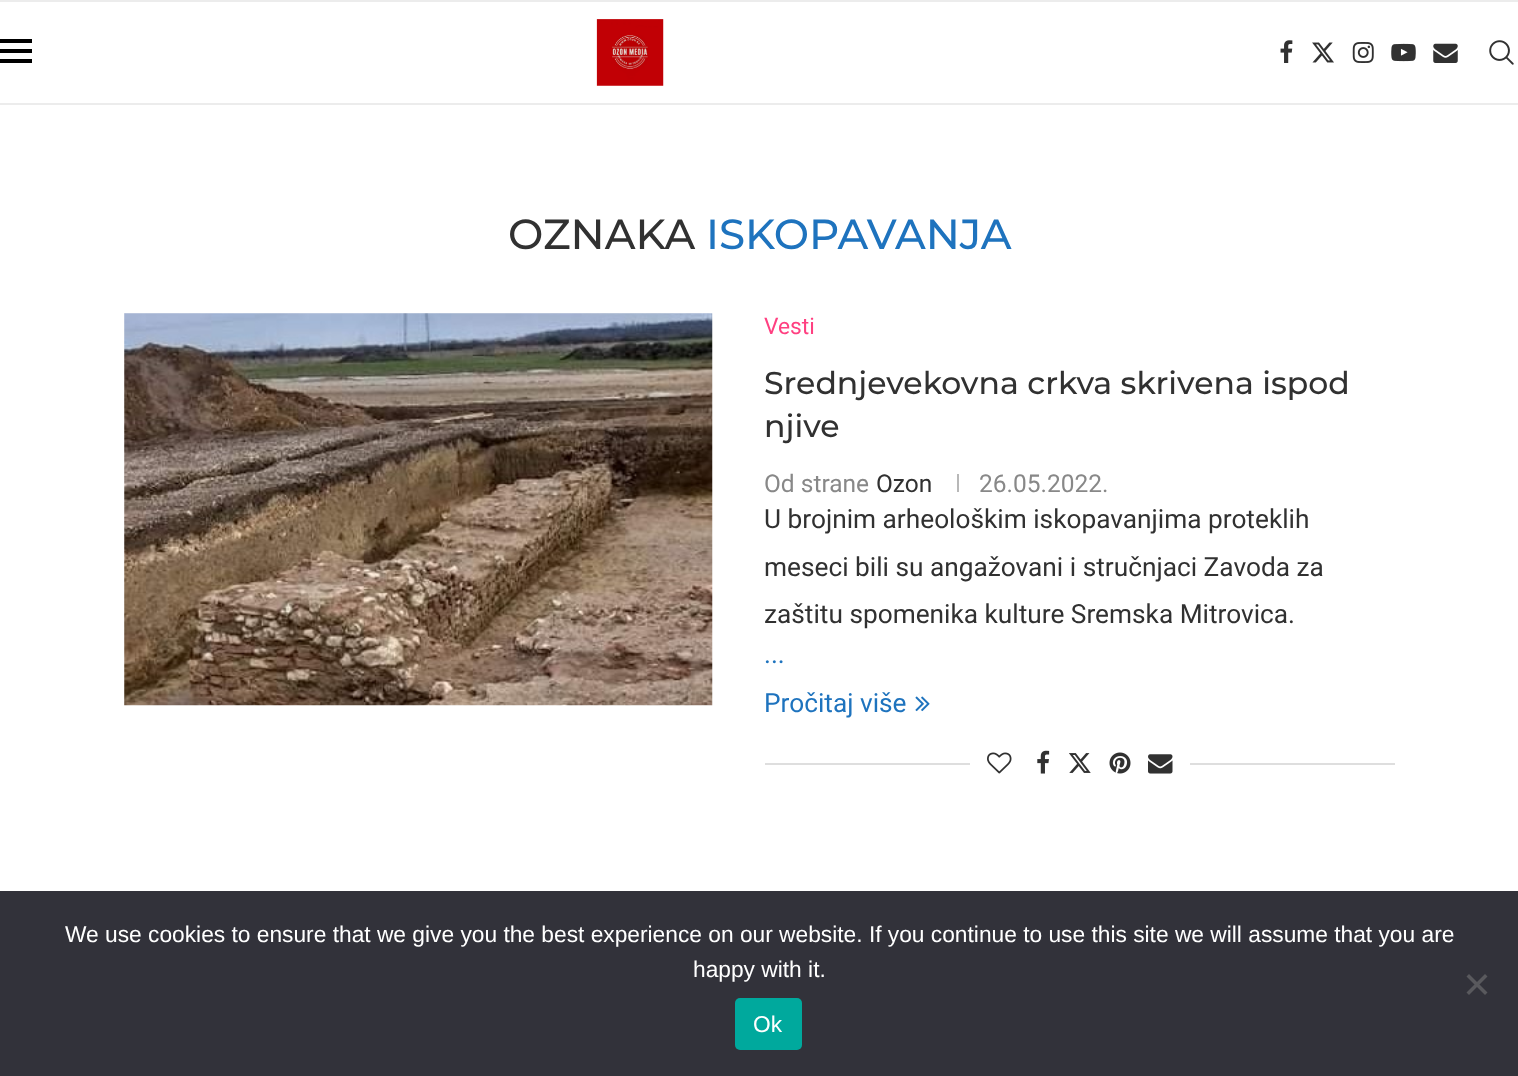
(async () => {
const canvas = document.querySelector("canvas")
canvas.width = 1518
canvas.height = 1076
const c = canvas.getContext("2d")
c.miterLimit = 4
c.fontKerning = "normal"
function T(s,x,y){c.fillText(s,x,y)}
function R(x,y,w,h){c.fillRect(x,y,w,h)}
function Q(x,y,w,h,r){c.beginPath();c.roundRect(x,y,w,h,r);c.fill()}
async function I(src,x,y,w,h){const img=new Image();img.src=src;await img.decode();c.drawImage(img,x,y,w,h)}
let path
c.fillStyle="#fff"
R(0,0,1518,1076)
c.fillStyle="#ececec"
R(0,0,1518,2)
R(0,103,1518,2)
c.fillStyle="#000"
R(0,39,32,4)
R(0,49,32,4)
R(0,59,32,4)
await I("1.png",596,19,68,67)
await I("2.png",1280,40,13,23)
await I("3.png",1312,42,22,21)
await I("4.png",1352,42,22,21)
await I("5.png",1391,43,25,19)
await I("6.png",1433,43,25,20)
await I("7.png",1489,40,25,25)
c.font="500 42px Montserrat"
c.fillStyle="#313131"
T("OZNAKA",508,249)
c.fillStyle="#1e73be"
T("ISKOPAVANJA",706,249)
c.fillStyle="#f5f5f5"
R(124,313,588,392)
await I("8.png",124,313,589,393)
c.font="22.75px Roboto"
c.fillStyle="#ff4081"
T("Vesti",764,334)
c.font="500 31.5px Montserrat"
c.fillStyle="#313131"
T("Srednjevekovna crkva skrivena ispod",764,394)
T("njive",764,437)
c.font="24.5px Roboto"
c.fillStyle="#888"
T("Od strane",764,492)
c.fillStyle="#313131"
T("Ozon",876,492)
c.fillStyle="#b8b8b8"
R(957,474,2,18)
c.fillStyle="#888"
T("26.05.2022.",979,492)
c.font="26.25px Roboto"
c.fillStyle="#313131"
T("U brojnim arheološkim iskopavanjima proteklih",764,528)
T("meseci bili su angažovani i stručnjaci Zavoda za",764,576)
T("zaštitu spomenika kulture Sremska Mitrovica.",764,623)
c.fillStyle="#1e73be"
T("...",764,663)
T("Pročitaj više",764,712)
await I("9.png",915,696,15,16)
c.fillStyle="#dedede"
R(765,763,630,2)
c.fillStyle="#fff"
R(970,763,220,2)
await I("10.png",987,752,25,22)
await I("11.png",1037,750,13,24)
await I("12.png",1069,753,22,20)
await I("13.png",1109,752,22,22)
await I("14.png",1148,754,25,20)
c.fillStyle="#32323a"
R(0,891,1518,185)
c.font="22.75px Liberation Sans"
c.fillStyle="#fff"
T("We use cookies to ensure that we give you the best experience on our website. If you continue to use this site we will assume that you are",65,942)
T("happy with it.",693,977)
c.fillStyle="#59595d"
path = new Path2D("M1485 974l2.5 2.5l-18.5 18.5l-2.5-2.5z")
c.fill(path)
path = new Path2D("M1466.5 976.5l2.5-2.5l18.5 18.5l-2.5 2.5z")
c.fill(path)
c.fillStyle="#00a99d"
Q(735,998,67,52,5)
c.fillStyle="#fff"
T("Ok",753,1032)
})()
